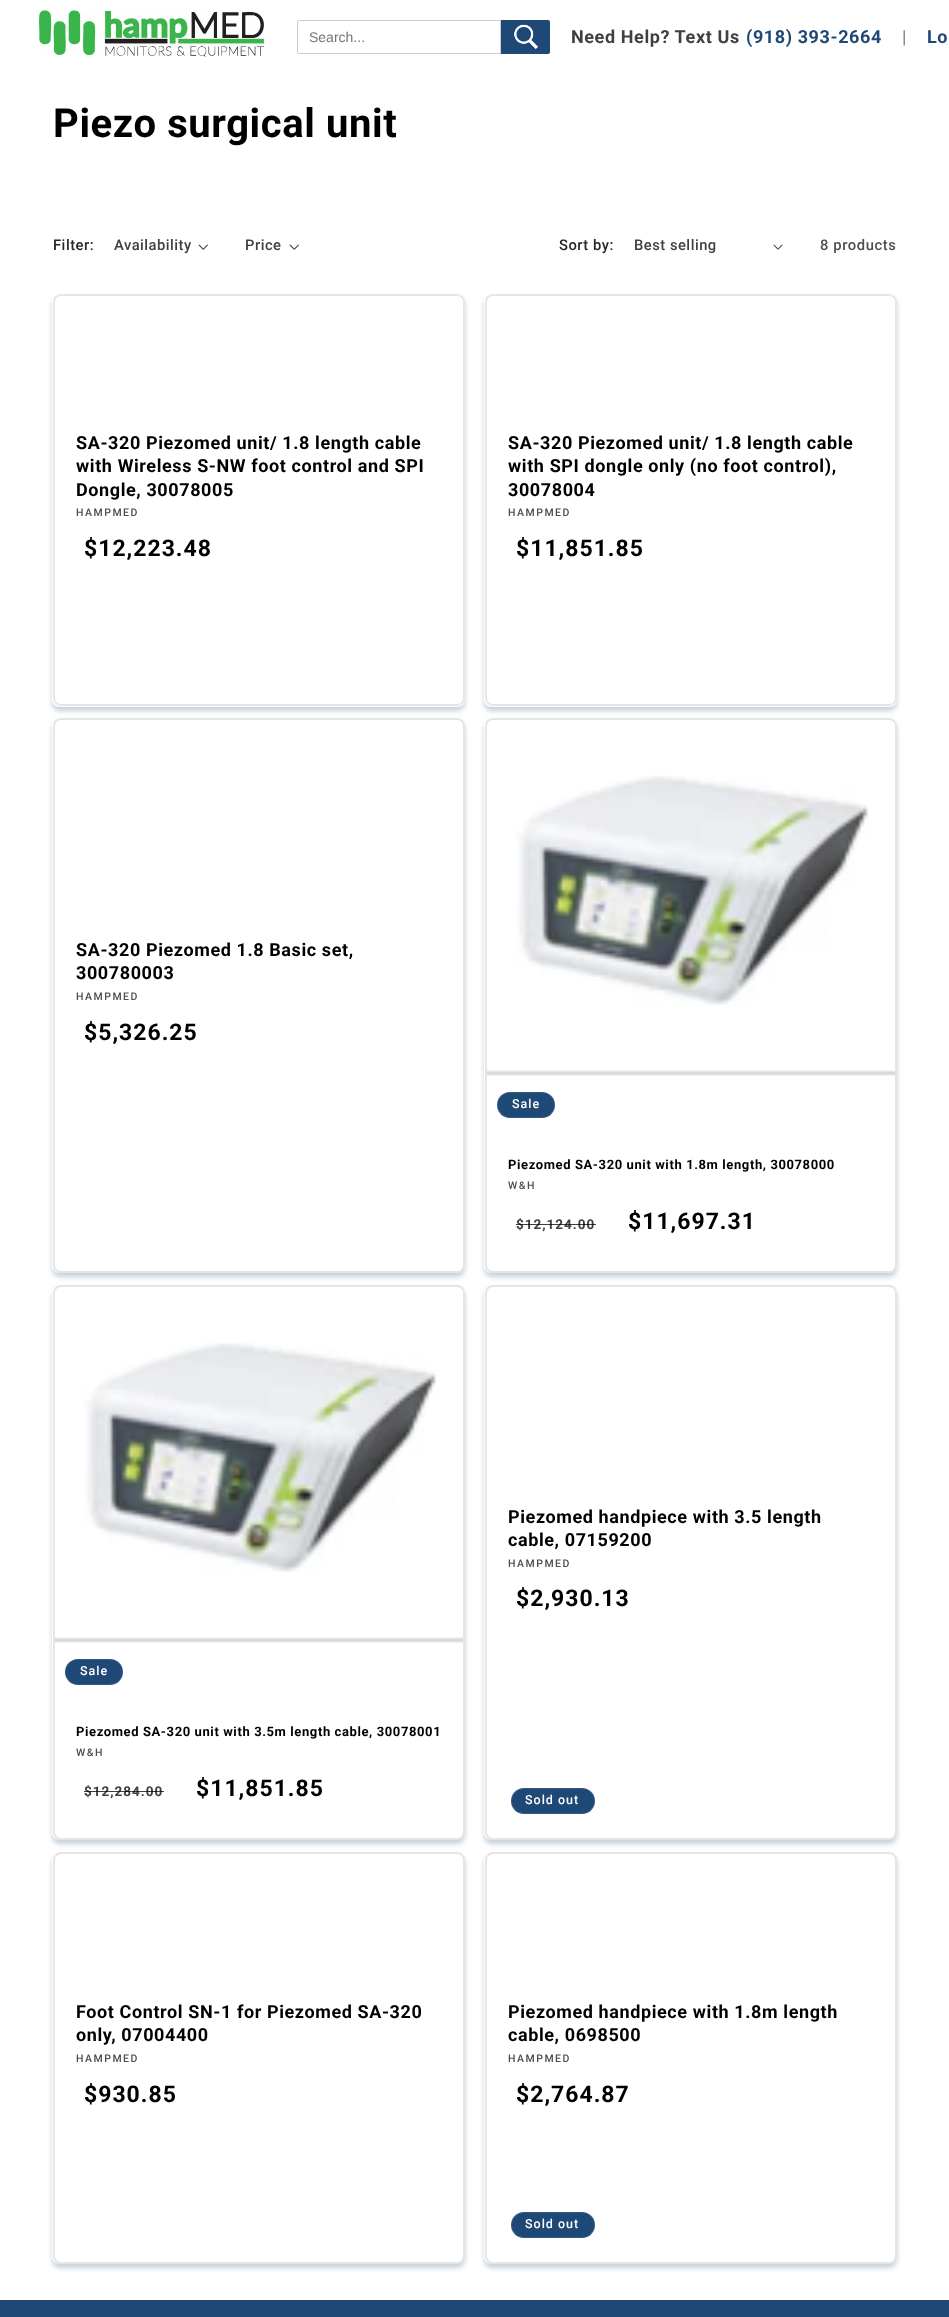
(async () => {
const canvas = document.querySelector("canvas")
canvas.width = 949
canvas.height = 2317
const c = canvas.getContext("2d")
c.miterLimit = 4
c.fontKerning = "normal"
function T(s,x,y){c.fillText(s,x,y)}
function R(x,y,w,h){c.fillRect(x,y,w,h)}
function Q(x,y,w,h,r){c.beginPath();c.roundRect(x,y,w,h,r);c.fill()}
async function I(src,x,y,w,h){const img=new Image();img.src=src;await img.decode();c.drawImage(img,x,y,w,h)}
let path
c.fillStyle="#fff"
R(0,0,949,2317)
await I("1.png",39,10,226,47)
c.beginPath()
c.roundRect(297.5,20.5,203,33,[1.5,0,0,1.5])
c.strokeStyle="#ccc"
c.stroke()
c.font="14px Liberation Sans"
c.fillStyle="#757575"
T("Search...",309,42)
c.fillStyle="#1e4875"
c.beginPath()
c.roundRect(501,20,49,34,[0,2,2,0])
c.fill()
await I("2.png",514,24,25,26)
c.letterSpacing="0.6px"
c.font="bold 18px Roboto"
c.fillStyle="#404040"
T("Need Help? Text Us",571,43)
c.fillStyle="#1e4875"
T("(918) 393-2664",746,43)
c.font="500 18px Roboto"
c.fillStyle="#888"
T("|",902,43)
c.font="bold 18px Roboto"
c.fillStyle="#1e4875"
T("Lo",927,43)
c.font="bold 40px Roboto"
c.fillStyle="#000"
T("Piezo surgical unit",53,137)
c.letterSpacing="0.5px"
c.font="500 14.75px Roboto"
c.fillStyle="#262626"
T("Filter:",53,250)
c.fillStyle="#404040"
T("Availability",114,250)
await I("3.png",198,244,10,6)
T("Price",245,250)
await I("3.png",289,244,10,6)
c.fillStyle="#262626"
T("Sort by:",559,250)
c.fillStyle="#404040"
T("Best selling",634,250)
await I("4.png",773,244,10,6)
c.letterSpacing="0.6px"
c.fillStyle="#4d4d4d"
T("8 products",820,250)
c.beginPath()
c.roundRect(54,295,410,410,7)
c.strokeStyle="#e6e6e6"
c.lineWidth=2
c.stroke()
c.save()
path = new Path2D("M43 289h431v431h-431zm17 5h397c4.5 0 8 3.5 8 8v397c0 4.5-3.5 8-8 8h-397c-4.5 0-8-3.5-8-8v-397c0-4.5 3.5-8 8-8z")
c.clip(path,"evenodd")
c.fillStyle="#1e487540"
c.filter="blur(2.5px)"
c.beginPath()
c.roundRect(52,298,413,413,8)
c.fill()
c.filter="none"
c.restore()
c.font="bold 18px Roboto"
c.fillStyle="#000"
T("SA-320 Piezomed unit/ 1.8 length cable",76,449)
T("with Wireless S-NW foot control and SPI",76,472)
T("Dongle, 30078005",76,496)
c.letterSpacing="1.5px"
c.font="500 10.5px Roboto"
c.fillStyle="#4d4d4d"
T("HAMPMED",76,516)
c.letterSpacing="1px"
c.font="bold 23px Roboto"
c.fillStyle="#000"
T("$12,223.48",84,556)
c.beginPath()
c.roundRect(486,295,410,410,7)
c.stroke()
c.save()
path = new Path2D("M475 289h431v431h-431zm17 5h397c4.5 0 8 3.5 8 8v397c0 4.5-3.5 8-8 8h-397c-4.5 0-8-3.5-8-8v-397c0-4.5 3.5-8 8-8z")
c.clip(path,"evenodd")
c.fillStyle="#1e487540"
c.filter="blur(2.5px)"
c.beginPath()
c.roundRect(484,298,413,413,8)
c.fill()
c.filter="none"
c.restore()
c.letterSpacing="0.6px"
c.font="bold 18px Roboto"
T("SA-320 Piezomed unit/ 1.8 length cable",508,449)
T("with SPI dongle only (no foot control),",508,472)
T("30078004",508,496)
c.letterSpacing="1.5px"
c.font="500 10.5px Roboto"
c.fillStyle="#4d4d4d"
T("HAMPMED",508,516)
c.letterSpacing="1px"
c.font="bold 23px Roboto"
c.fillStyle="#000"
T("$11,851.85",516,556)
c.beginPath()
c.roundRect(54,719,410,553,7)
c.strokeStyle="#e5e5e5"
c.stroke()
c.save()
path = new Path2D("M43 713h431v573h-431zm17 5h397c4.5 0 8 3.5 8 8v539c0 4.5-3.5 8-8 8h-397c-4.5 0-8-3.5-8-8v-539c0-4.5 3.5-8 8-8z")
c.clip(path,"evenodd")
c.fillStyle="#1e487540"
c.filter="blur(2.5px)"
c.beginPath()
c.roundRect(52,722,413,555,8)
c.fill()
c.filter="none"
c.restore()
c.letterSpacing="0.6px"
c.font="bold 18px Roboto"
T("SA-320 Piezomed 1.8 Basic set,",76,956)
T("300780003",76,979)
c.letterSpacing="1.5px"
c.font="500 10.5px Roboto"
c.fillStyle="#4d4d4d"
T("HAMPMED",76,1000)
c.letterSpacing="1px"
c.font="bold 23px Roboto"
c.fillStyle="#000"
T("$5,326.25",84,1040)
c.beginPath()
c.roundRect(486,719,410,553,7)
c.stroke()
c.save()
path = new Path2D("M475 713h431v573h-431zm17 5h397c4.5 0 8 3.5 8 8v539c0 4.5-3.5 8-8 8h-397c-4.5 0-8-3.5-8-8v-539c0-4.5 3.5-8 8-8z")
c.clip(path,"evenodd")
c.fillStyle="#1e487540"
c.filter="blur(2.5px)"
c.beginPath()
c.roundRect(484,722,413,555,8)
c.fill()
c.filter="none"
c.restore()
await I("5.png",487,723,408,353)
c.fillStyle="#1e4875"
Q(497,1092,58,26,13)
c.beginPath()
c.roundRect(497.5,1092.5,57,25,12.5)
c.strokeStyle="#ffffff1a"
c.lineWidth=1
c.stroke()
c.font="500 12.5px Roboto"
c.fillStyle="#fff"
T("Sale",512,1108)
c.letterSpacing="0.6px"
c.font="bold 13px Roboto"
c.fillStyle="#000"
T("Piezomed SA-320 unit with 1.8m length, 30078000",508,1169)
c.letterSpacing="1.5px"
c.font="500 10.5px Roboto"
c.fillStyle="#4d4d4d"
T("W&H",508,1189)
c.letterSpacing="1px"
c.font="bold 13.5px Roboto"
c.fillStyle="#404040"
T("$12,124.00",516,1229)
c.fillStyle="#000000bf"
R(516,1224,80,1)
c.font="bold 23px Roboto"
c.fillStyle="#000"
T("$11,697.31",628,1229)
c.beginPath()
c.roundRect(54,1286,410,553,7)
c.strokeStyle="#e5e5e5"
c.lineWidth=2
c.stroke()
c.save()
path = new Path2D("M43 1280h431v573h-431zm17 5h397c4.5 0 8 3.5 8 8v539c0 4.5-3.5 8-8 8h-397c-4.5 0-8-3.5-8-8v-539c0-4.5 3.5-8 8-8z")
c.clip(path,"evenodd")
c.fillStyle="#1e487540"
c.filter="blur(2.5px)"
c.beginPath()
c.roundRect(52,1289,413,555,8)
c.fill()
c.filter="none"
c.restore()
await I("6.png",55,1290,408,353)
c.fillStyle="#1e4875"
Q(65,1659,58,26,13)
c.beginPath()
c.roundRect(65.5,1659.5,57,25,12.5)
c.strokeStyle="#ffffff1a"
c.lineWidth=1
c.stroke()
c.font="500 12.5px Roboto"
c.fillStyle="#fff"
T("Sale",80,1675)
c.letterSpacing="0.6px"
c.font="bold 13px Roboto"
c.fillStyle="#000"
T("Piezomed SA-320 unit with 3.5m length cable, 30078001",76,1736)
c.letterSpacing="1.5px"
c.font="500 10.5px Roboto"
c.fillStyle="#4d4d4d"
T("W&H",76,1756)
c.letterSpacing="1px"
c.font="bold 13.5px Roboto"
c.fillStyle="#404040"
T("$12,284.00",84,1796)
c.fillStyle="#000000bf"
R(84,1791,80,1)
c.font="bold 23px Roboto"
c.fillStyle="#000"
T("$11,851.85",196,1796)
c.beginPath()
c.roundRect(486,1286,410,553,7)
c.strokeStyle="#e5e5e5"
c.lineWidth=2
c.stroke()
c.save()
path = new Path2D("M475 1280h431v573h-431zm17 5h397c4.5 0 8 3.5 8 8v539c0 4.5-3.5 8-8 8h-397c-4.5 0-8-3.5-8-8v-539c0-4.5 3.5-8 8-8z")
c.clip(path,"evenodd")
c.fillStyle="#1e487540"
c.filter="blur(2.5px)"
c.beginPath()
c.roundRect(484,1289,413,555,8)
c.fill()
c.filter="none"
c.restore()
c.letterSpacing="0.6px"
c.font="bold 18px Roboto"
T("Piezomed handpiece with 3.5 length",508,1523)
T("cable, 07159200",508,1546)
c.letterSpacing="1.5px"
c.font="500 10.5px Roboto"
c.fillStyle="#4d4d4d"
T("HAMPMED",508,1567)
c.letterSpacing="1px"
c.font="bold 23px Roboto"
c.fillStyle="#000"
T("$2,930.13",516,1606)
c.fillStyle="#1e4875"
Q(511,1788,84,26,13)
c.beginPath()
c.roundRect(511.5,1788.5,83,25,12.5)
c.strokeStyle="#ffffff1a"
c.lineWidth=1
c.stroke()
c.font="500 12.5px Roboto"
c.fillStyle="#fff"
T("Sold out",525,1804)
c.beginPath()
c.roundRect(54,1853,410,410,7)
c.strokeStyle="#e5e5e5"
c.lineWidth=2
c.stroke()
c.save()
path = new Path2D("M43 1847h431v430h-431zm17 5h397c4.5 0 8 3.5 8 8v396c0 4.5-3.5 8-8 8h-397c-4.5 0-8-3.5-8-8v-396c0-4.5 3.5-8 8-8z")
c.clip(path,"evenodd")
c.fillStyle="#1e487540"
c.filter="blur(2.5px)"
c.beginPath()
c.roundRect(52,1856,413,412,8)
c.fill()
c.filter="none"
c.restore()
c.letterSpacing="0.6px"
c.font="bold 18px Roboto"
c.fillStyle="#000"
T("Foot Control SN-1 for Piezomed SA-320",76,2018)
T("only, 07004400",76,2041)
c.letterSpacing="1.5px"
c.font="500 10.5px Roboto"
c.fillStyle="#4d4d4d"
T("HAMPMED",76,2062)
c.letterSpacing="1px"
c.font="bold 23px Roboto"
c.fillStyle="#000"
T("$930.85",84,2102)
c.beginPath()
c.roundRect(486,1853,410,410,7)
c.stroke()
c.save()
path = new Path2D("M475 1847h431v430h-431zm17 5h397c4.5 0 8 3.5 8 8v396c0 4.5-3.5 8-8 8h-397c-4.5 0-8-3.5-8-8v-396c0-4.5 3.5-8 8-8z")
c.clip(path,"evenodd")
c.fillStyle="#1e487540"
c.filter="blur(2.5px)"
c.beginPath()
c.roundRect(484,1856,413,412,8)
c.fill()
c.filter="none"
c.restore()
c.letterSpacing="0.6px"
c.font="bold 18px Roboto"
T("Piezomed handpiece with 1.8m length",508,2018)
T("cable, 0698500",508,2041)
c.letterSpacing="1.5px"
c.font="500 10.5px Roboto"
c.fillStyle="#4d4d4d"
T("HAMPMED",508,2062)
c.letterSpacing="1px"
c.font="bold 23px Roboto"
c.fillStyle="#000"
T("$2,764.87",516,2102)
c.fillStyle="#1e4875"
Q(511,2212,84,26,13)
c.beginPath()
c.roundRect(511.5,2212.5,83,25,12.5)
c.strokeStyle="#ffffff1a"
c.lineWidth=1
c.stroke()
c.font="500 12.5px Roboto"
c.fillStyle="#fff"
T("Sold out",525,2228)
c.fillStyle="#1e4875"
R(0,2300,949,17)
})()
